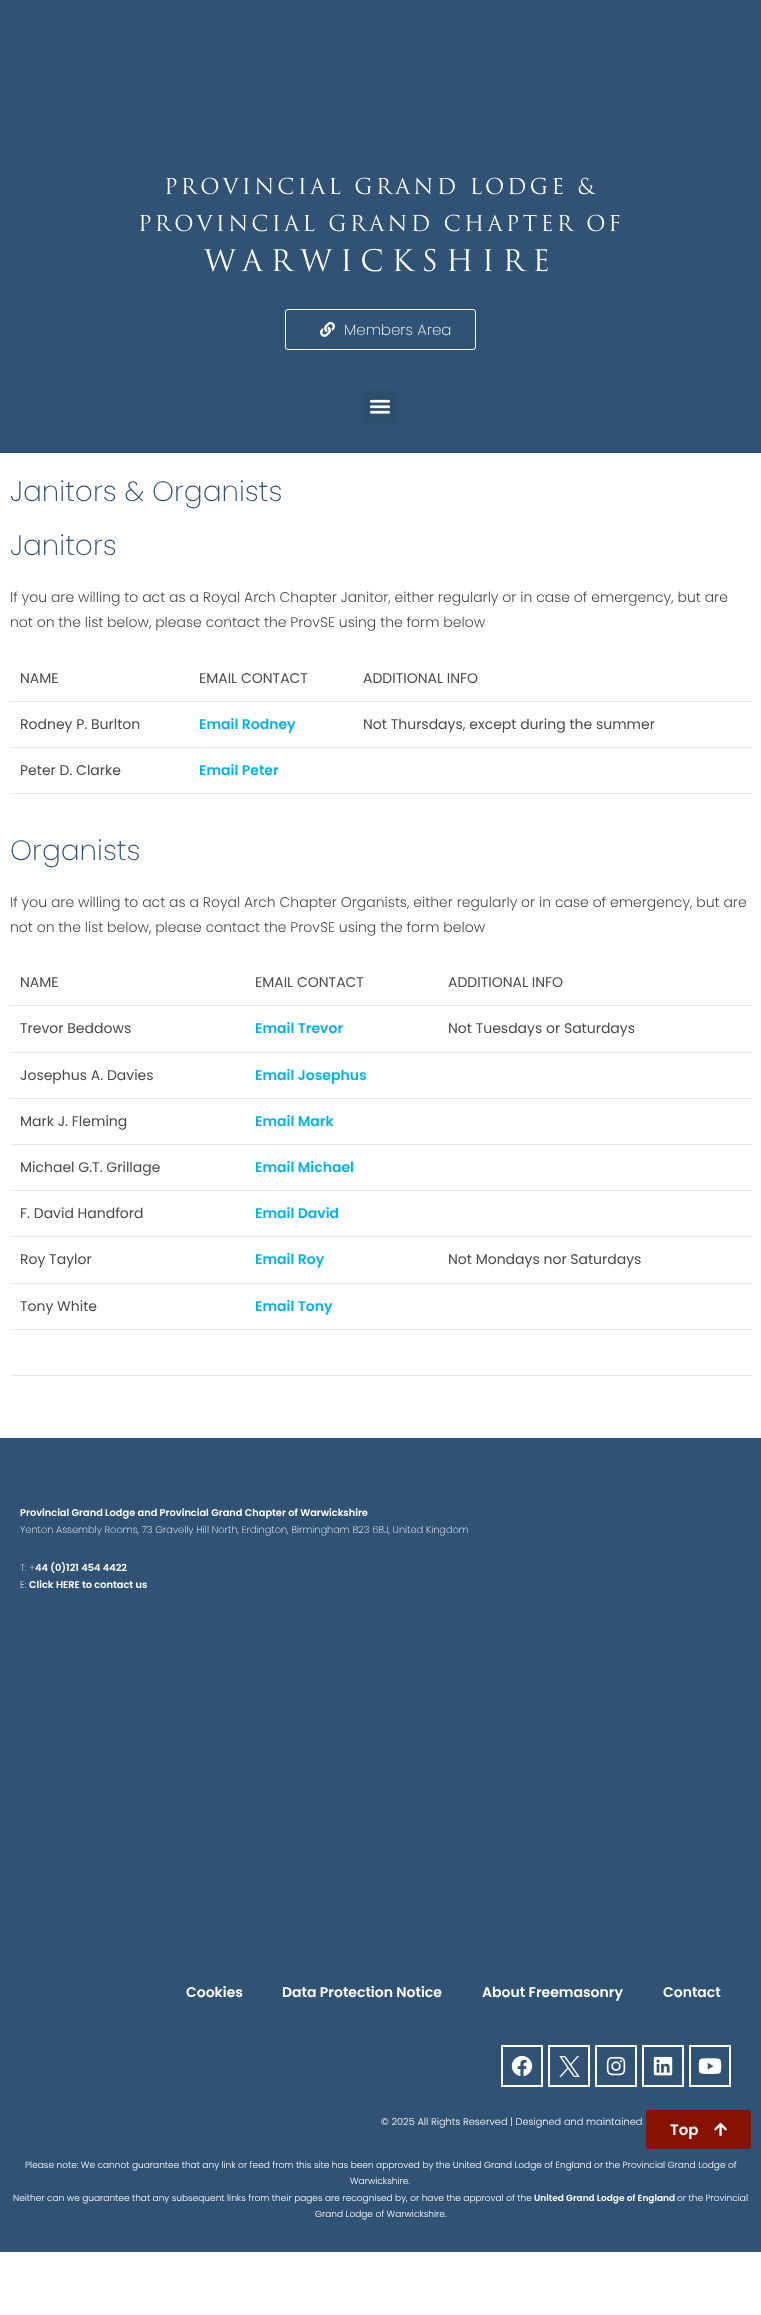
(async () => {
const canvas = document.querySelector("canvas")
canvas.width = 761
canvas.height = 2315
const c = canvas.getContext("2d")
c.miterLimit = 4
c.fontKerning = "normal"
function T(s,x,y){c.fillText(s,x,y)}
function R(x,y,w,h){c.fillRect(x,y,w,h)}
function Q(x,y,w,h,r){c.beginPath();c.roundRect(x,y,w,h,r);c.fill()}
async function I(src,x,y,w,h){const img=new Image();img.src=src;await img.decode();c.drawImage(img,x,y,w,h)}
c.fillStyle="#fff"
R(0,0,761,2315)
c.fillStyle="#305274"
R(0,0,761,453)
await I("1.png",166,177,430,18)
await I("2.png",140,214,480,18)
await I("3.png",203,248,345,24)
c.beginPath()
c.roundRect(285.5,309.5,190,40,2.5)
c.strokeStyle="#fff"
c.stroke()
await I("4.png",320,321,15,16)
c.font="200 15px Poppins"
c.fillStyle="#fff"
T("Members Area",344,335)
c.fillStyle="#2e4e6e"
Q(364,390,33,33,3)
await I("5.png",369,399,22,15)
c.font="200 28px Poppins"
c.fillStyle="#305274"
T("Janitors & Organists",10,501)
T("Janitors",10,555)
c.font="300 14px Poppins"
c.fillStyle="#4a4a4a"
T("If you are willing to act as a Royal Arch Chapter Janitor, either regularly or in case of emergency, but are",10,602)
T("not on the list below, please contact the ProvSE using the form below",10,627)
c.font="14px Poppins"
T("NAME",20,683)
T("EMAIL CONTACT",199,683)
c.fillStyle="#e9e9e9"
R(10,701,742,1)
c.fillStyle="#4a4a4a"
T("ADDITIONAL INFO",363,683)
T("Rodney P. Burlton",20,729)
c.font="600 14px Poppins"
c.fillStyle="#00b3ee"
T("Email Rodney",199,729)
c.fillStyle="#e9e9e9"
R(10,747,742,1)
c.font="14px Poppins"
c.fillStyle="#4a4a4a"
T("Not Thursdays, except during the summer",363,729)
T("Peter D. Clarke",20,775)
c.font="600 14px Poppins"
c.fillStyle="#00b3ee"
T("Email Peter",199,775)
c.fillStyle="#e9e9e9"
R(10,793,742,1)
c.font="200 28px Poppins"
c.fillStyle="#305274"
T("Organists",10,860)
c.font="300 14px Poppins"
c.fillStyle="#4a4a4a"
T("If you are willing to act as a Royal Arch Chapter Organists, either regularly or in case of emergency, but are",10,907)
T("not on the list below, please contact the ProvSE using the form below",10,932)
c.font="14px Poppins"
T("NAME",20,987)
T("EMAIL CONTACT",255,987)
c.fillStyle="#e9e9e9"
R(10,1005,742,1)
c.fillStyle="#4a4a4a"
T("ADDITIONAL INFO",448,987)
T("Trevor Beddows",20,1033)
c.font="600 14px Poppins"
c.fillStyle="#00b3ee"
T("Email Trevor",255,1033)
c.fillStyle="#e9e9e9"
R(10,1052,742,1)
c.font="14px Poppins"
c.fillStyle="#4a4a4a"
T("Not Tuesdays or Saturdays",448,1033)
T("Josephus A. Davies",20,1080)
c.font="600 14px Poppins"
c.fillStyle="#00b3ee"
T("Email Josephus",255,1080)
c.fillStyle="#e9e9e9"
R(10,1098,742,1)
c.font="14px Poppins"
c.fillStyle="#4a4a4a"
T("Mark J. Fleming",20,1126)
c.font="600 14px Poppins"
c.fillStyle="#00b3ee"
T("Email Mark",255,1126)
c.fillStyle="#e9e9e9"
R(10,1144,742,1)
c.font="14px Poppins"
c.fillStyle="#4a4a4a"
T("Michael G.T. Grillage",20,1172)
c.font="600 14px Poppins"
c.fillStyle="#00b3ee"
T("Email Michael",255,1172)
c.fillStyle="#e9e9e9"
R(10,1190,742,1)
c.font="14px Poppins"
c.fillStyle="#4a4a4a"
T("F. David Handford",20,1218)
c.font="600 14px Poppins"
c.fillStyle="#00b3ee"
T("Email David",255,1218)
c.fillStyle="#e9e9e9"
R(10,1236,742,1)
c.font="14px Poppins"
c.fillStyle="#4a4a4a"
T("Roy Taylor",20,1264)
c.font="600 14px Poppins"
c.fillStyle="#00b3ee"
T("Email Roy",255,1264)
c.fillStyle="#e9e9e9"
R(10,1283,742,1)
c.font="14px Poppins"
c.fillStyle="#4a4a4a"
T("Not Mondays nor Saturdays",448,1264)
T("Tony White",20,1311)
c.font="600 14px Poppins"
c.fillStyle="#00b3ee"
T("Email Tony",255,1311)
c.fillStyle="#e9e9e9"
R(10,1329,742,1)
R(10,1375,742,1)
c.fillStyle="#305274"
R(0,1438,761,814)
c.font="600 9.8px Poppins"
c.fillStyle="#fff"
T("Provincial Grand Lodge and Provincial Grand Chapter of Warwickshire",20,1516)
c.font="200 9.8px Poppins"
T("Yenton Assembly Rooms, 73 Gravelly Hill North, Erdington, Birmingham B23 6BJ, United Kingdom",20,1533)
T("T: +",20,1571)
c.font="600 9.8px Poppins"
T("44 (0)121 454 4422",35,1571)
c.font="200 9.8px Poppins"
T("E:",20,1588)
c.font="600 9.8px Poppins"
T("Click HERE to contact us",29,1588)
c.font="600 14px Poppins"
T("Cookies",186,1997)
T("Data Protection Notice",282,1997)
T("About Freemasonry",482,1997)
T("Contact",663,1997)
c.lineWidth=2
c.strokeRect(502,2046,40,40)
await I("6.png",511,2056,22,21)
c.strokeRect(549,2046,40,40)
await I("7.png",559,2056,21,21)
c.strokeRect(596,2046,40,40)
await I("8.png",606,2056,20,20)
c.strokeRect(643,2046,40,40)
await I("9.png",653,2056,20,20)
c.strokeRect(690,2046,40,40)
await I("10.png",698,2058,24,16)
c.font="300 9.8px Poppins"
T("© 2025 All Rights Reserved | Designed and maintained",381,2125)
c.fillStyle="#871103"
Q(646,2110,105,39,3)
c.font="600 15px Poppins"
c.fillStyle="#fff"
T("Top",670,2135)
await I("11.png",714,2122,13,14)
c.font="300 9px Poppins"
T("Please note: We cannot guarantee that any link or feed from this site has been approved by the United Grand Lodge of England or the Provincial Grand Lodge of",25,2168)
T("Warwickshire.",350,2184)
T("Neither can we guarantee that any subsequent links from their pages are recognised by, or have the approval of the",13,2201)
c.font="600 9px Poppins"
T("United Grand Lodge of England",534,2201)
c.font="300 9px Poppins"
T("or the Provincial",677,2201)
T("Grand Lodge of Warwickshire.",315,2217)
})()
